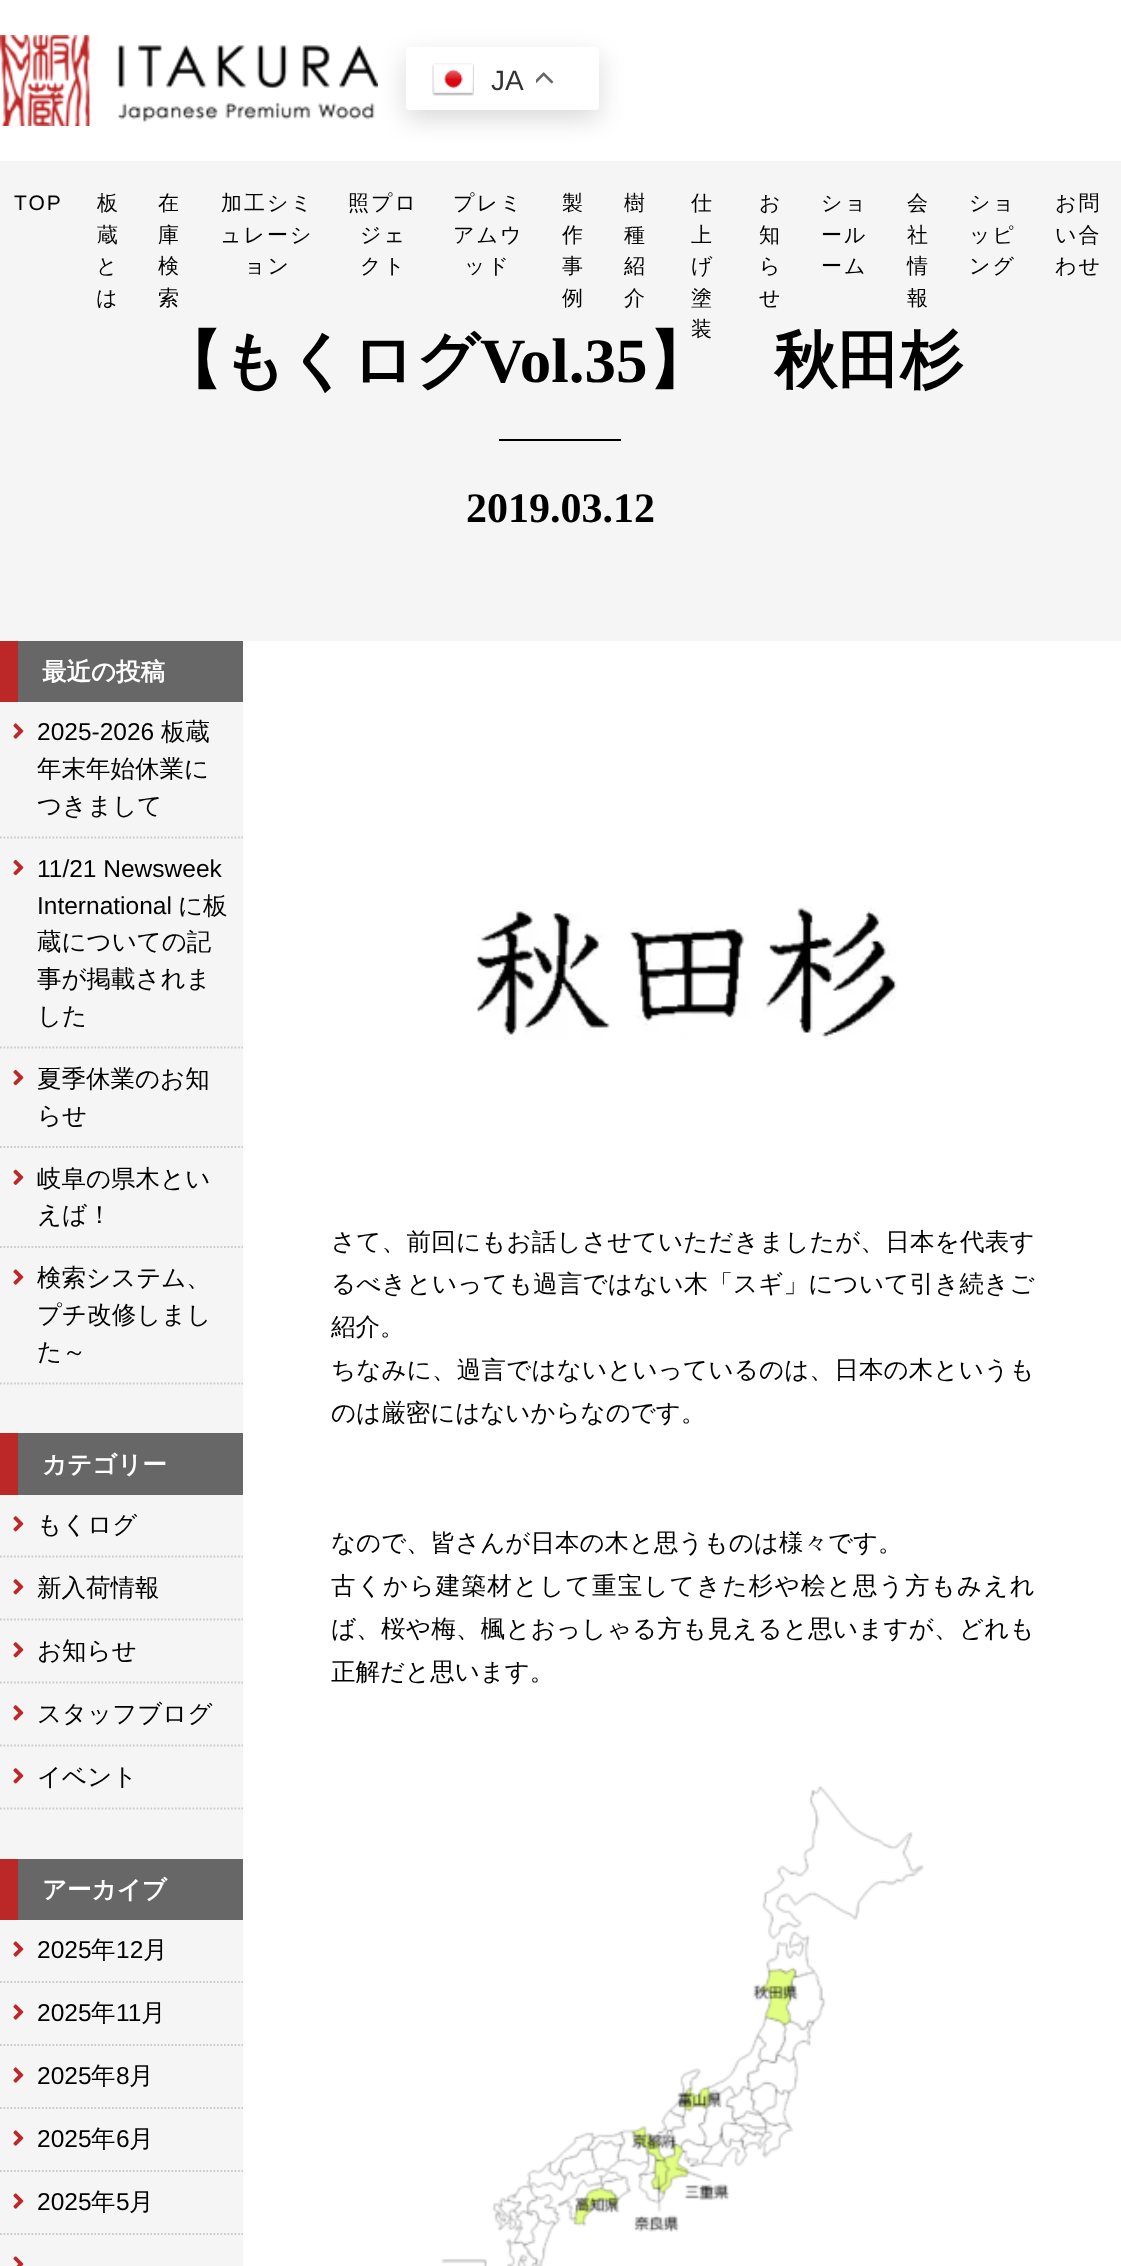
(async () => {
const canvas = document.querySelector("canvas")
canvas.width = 1121
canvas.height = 2266
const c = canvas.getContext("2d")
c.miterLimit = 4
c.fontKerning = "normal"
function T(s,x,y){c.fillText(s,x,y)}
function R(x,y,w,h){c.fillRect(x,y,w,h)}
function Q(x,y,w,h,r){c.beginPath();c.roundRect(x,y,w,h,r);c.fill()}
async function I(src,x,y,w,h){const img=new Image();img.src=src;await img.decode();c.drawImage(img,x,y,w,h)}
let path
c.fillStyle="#fff"
R(0,0,1121,2266)
await I("1.png",0,35,378,91)
c.fillStyle="#00000026"
c.filter="blur(13px)"
c.beginPath()
c.roundRect(406,56,193,63,4)
c.fill()
c.filter="none"
c.fillStyle="#fff"
Q(406,47,193,63,4)
await I("2.png",432,63,42,33)
c.font="28px Liberation Sans"
c.fillStyle="#333"
T("JA",491,90)
await I("3.png",536,72,18,12)
c.fillStyle="#f5f5f5"
R(0,161,1121,2105)
c.letterSpacing="2px"
c.font="21px Liberation Sans"
c.fillStyle="#000"
T("TOP",14,210)
c.font="500 21px WenQuanYi Zen Hei"
T("板",97,210)
T("蔵",97,242)
T("と",96,273)
T("は",96,305)
T("在",158,210)
T("庫",158,242)
T("検",158,273)
T("索",158,305)
T("加工シミ",221,210)
T("ュレーシ",220,242)
T("ョン",244,273)
T("照プロ",348,210)
T("ジェ",360,242)
T("クト",360,273)
T("プレミ",453,210)
T("アムウ",453,242)
T("ッド",464,273)
T("製",562,210)
T("作",562,242)
T("事",562,273)
T("例",562,305)
T("樹",624,210)
T("種",624,242)
T("紹",624,273)
T("介",624,305)
T("仕",691,210)
T("上",691,242)
T("げ",691,273)
T("塗",691,305)
c.letterSpacing="0px"
c.font="bold 63px WenQuanYi Zen Hei"
T("】　秋田杉",648,382)
c.letterSpacing="2px"
c.font="500 21px WenQuanYi Zen Hei"
T("装",691,336)
T("お",759,210)
T("知",759,242)
T("ら",759,273)
T("せ",759,305)
T("ショ",821,210)
T("ール",821,242)
T("ーム",821,273)
T("会",907,210)
T("社",907,242)
T("情",907,273)
T("報",907,305)
T("ショ",969,210)
T("ッピ",969,242)
T("ング",969,273)
T("お問",1055,210)
T("い合",1055,242)
T("わせ",1055,273)
c.letterSpacing="0px"
c.font="bold 63px WenQuanYi Zen Hei"
T("【もくログ",159,382)
c.font="bold 63px Liberation Serif"
T("Vol.35",480,382)
R(499,439,122,2)
c.font="bold 42px Liberation Serif"
T("2019.03.12",466,522)
c.fillStyle="#676767"
R(18,641,225,61)
c.fillStyle="#bc2727"
R(0,641,18,61)
c.font="bold 24.5px WenQuanYi Zen Hei"
c.fillStyle="#fff"
T("最近の投稿",42,680)
path = new Path2D("M0 837.5h243")
c.strokeStyle="#ccc"
c.lineWidth=1.8
c.setLineDash([1.75,1.75])
c.stroke(path)
await I("4.png",13,723,11,16)
c.font="24.5px Liberation Sans"
c.fillStyle="#000"
T("2025-2026",37,740)
c.font="500 24.5px WenQuanYi Zen Hei"
T("板蔵",161,740)
T("年末年始休業に",37,777)
T("つきまして",37,814)
path = new Path2D("M0 1047.5h243")
c.stroke(path)
await I("5.png",13,859,11,17)
c.font="24.5px Liberation Sans"
T("11/21 Newsweek",37,877)
T("International",37,914)
c.font="500 24.5px WenQuanYi Zen Hei"
T("に板",178,914)
T("蔵についての記",37,950)
T("事が掲載されま",37,987)
T("した",37,1024)
path = new Path2D("M0 1147h243")
c.stroke(path)
await I("5.png",13,1069,11,17)
T("夏季休業のお知",37,1087)
T("らせ",37,1124)
path = new Path2D("M0 1247h243")
c.stroke(path)
await I("6.png",13,1169,11,16)
T("岐阜の県木とい",37,1187)
T("えば！",37,1223)
path = new Path2D("M0 1383.5h243")
c.stroke(path)
await I("4.png",13,1269,11,16)
T("検索システム、",37,1286)
T("プチ改修しまし",37,1323)
T("た～",37,1360)
c.fillStyle="#676767"
R(18,1433,225,62)
c.fillStyle="#bc2727"
R(0,1433,18,62)
c.font="bold 24.5px WenQuanYi Zen Hei"
c.fillStyle="#fff"
T("カテゴリー",42,1473)
path = new Path2D("M0 1556.5h243")
c.stroke(path)
await I("7.png",13,1516,11,16)
c.font="500 24.5px WenQuanYi Zen Hei"
c.fillStyle="#000"
T("もくログ",37,1533)
path = new Path2D("M0 1619.5h243")
c.stroke(path)
await I("7.png",13,1579,11,16)
T("新入荷情報",37,1596)
path = new Path2D("M0 1682.5h243")
c.stroke(path)
await I("7.png",13,1642,11,16)
T("お知らせ",37,1659)
path = new Path2D("M0 1745.5h243")
c.stroke(path)
await I("7.png",13,1705,11,16)
T("スタッフブログ",37,1722)
path = new Path2D("M0 1808.5h243")
c.stroke(path)
await I("7.png",13,1768,11,16)
T("イベント",37,1785)
c.fillStyle="#676767"
R(18,1859,225,61)
c.fillStyle="#bc2727"
R(0,1859,18,61)
c.font="bold 24.5px WenQuanYi Zen Hei"
c.fillStyle="#fff"
T("アーカイブ",42,1898)
path = new Path2D("M0 1982h243")
c.stroke(path)
await I("4.png",13,1941,11,16)
c.font="24.5px Liberation Sans"
c.fillStyle="#000"
T("2025",37,1958)
c.font="500 24.5px WenQuanYi Zen Hei"
T("年",91,1958)
c.font="24.5px Liberation Sans"
T("12",116,1958)
c.font="500 24.5px WenQuanYi Zen Hei"
T("月",143,1958)
path = new Path2D("M0 2045h243")
c.stroke(path)
await I("4.png",13,2004,11,16)
c.font="24.5px Liberation Sans"
T("2025",37,2021)
c.font="500 24.5px WenQuanYi Zen Hei"
T("年",91,2021)
c.font="24.5px Liberation Sans"
T("11",116,2021)
c.font="500 24.5px WenQuanYi Zen Hei"
T("月",141,2021)
path = new Path2D("M0 2108h243")
c.stroke(path)
await I("4.png",13,2067,11,16)
c.font="24.5px Liberation Sans"
T("2025",37,2084)
c.font="500 24.5px WenQuanYi Zen Hei"
T("年",91,2084)
c.font="24.5px Liberation Sans"
T("8",116,2084)
c.font="500 24.5px WenQuanYi Zen Hei"
T("月",129,2084)
path = new Path2D("M0 2171h243")
c.stroke(path)
await I("4.png",13,2130,11,16)
c.font="24.5px Liberation Sans"
T("2025",37,2147)
c.font="500 24.5px WenQuanYi Zen Hei"
T("年",91,2147)
c.font="24.5px Liberation Sans"
T("6",116,2147)
c.font="500 24.5px WenQuanYi Zen Hei"
T("月",129,2147)
path = new Path2D("M0 2234h243")
c.stroke(path)
await I("4.png",13,2193,11,16)
c.font="24.5px Liberation Sans"
T("2025",37,2210)
c.font="500 24.5px WenQuanYi Zen Hei"
T("年",91,2210)
c.font="24.5px Liberation Sans"
T("5",116,2210)
c.font="500 24.5px WenQuanYi Zen Hei"
T("月",129,2210)
await I("8.png",13,2256,11,10)
c.fillStyle="#fff"
R(243,641,878,1625)
await I("9.png",476,906,421,134)
c.letterSpacing="0.25px"
c.fillStyle="#000"
T("さて、前回にもお話しさせていただきましたが、日本を代表す",331,1250)
c.letterSpacing="0.2px"
T("るべきといっても過言ではない木「スギ」について引き続きご",331,1292)
c.letterSpacing="0px"
T("紹介。",331,1335)
c.letterSpacing="0.2px"
T("ちなみに、過言ではないといっているのは、日本の木というも",331,1378)
c.letterSpacing="0px"
T("のは厳密にはないからなのです。",331,1421)
T("なので、皆さんが日本の木と思うものは様々です。",331,1551)
c.letterSpacing="1.25px"
T("古くから建築材として重宝してきた杉や桧と思う方もみえれ",331,1594)
c.letterSpacing="0.25px"
T("ば、桜や梅、楓とおっしゃる方も見えると思いますが、どれも",331,1637)
c.letterSpacing="0px"
T("正解だと思います。",331,1680)
await I("10.png",441,1786,483,480)
})()
